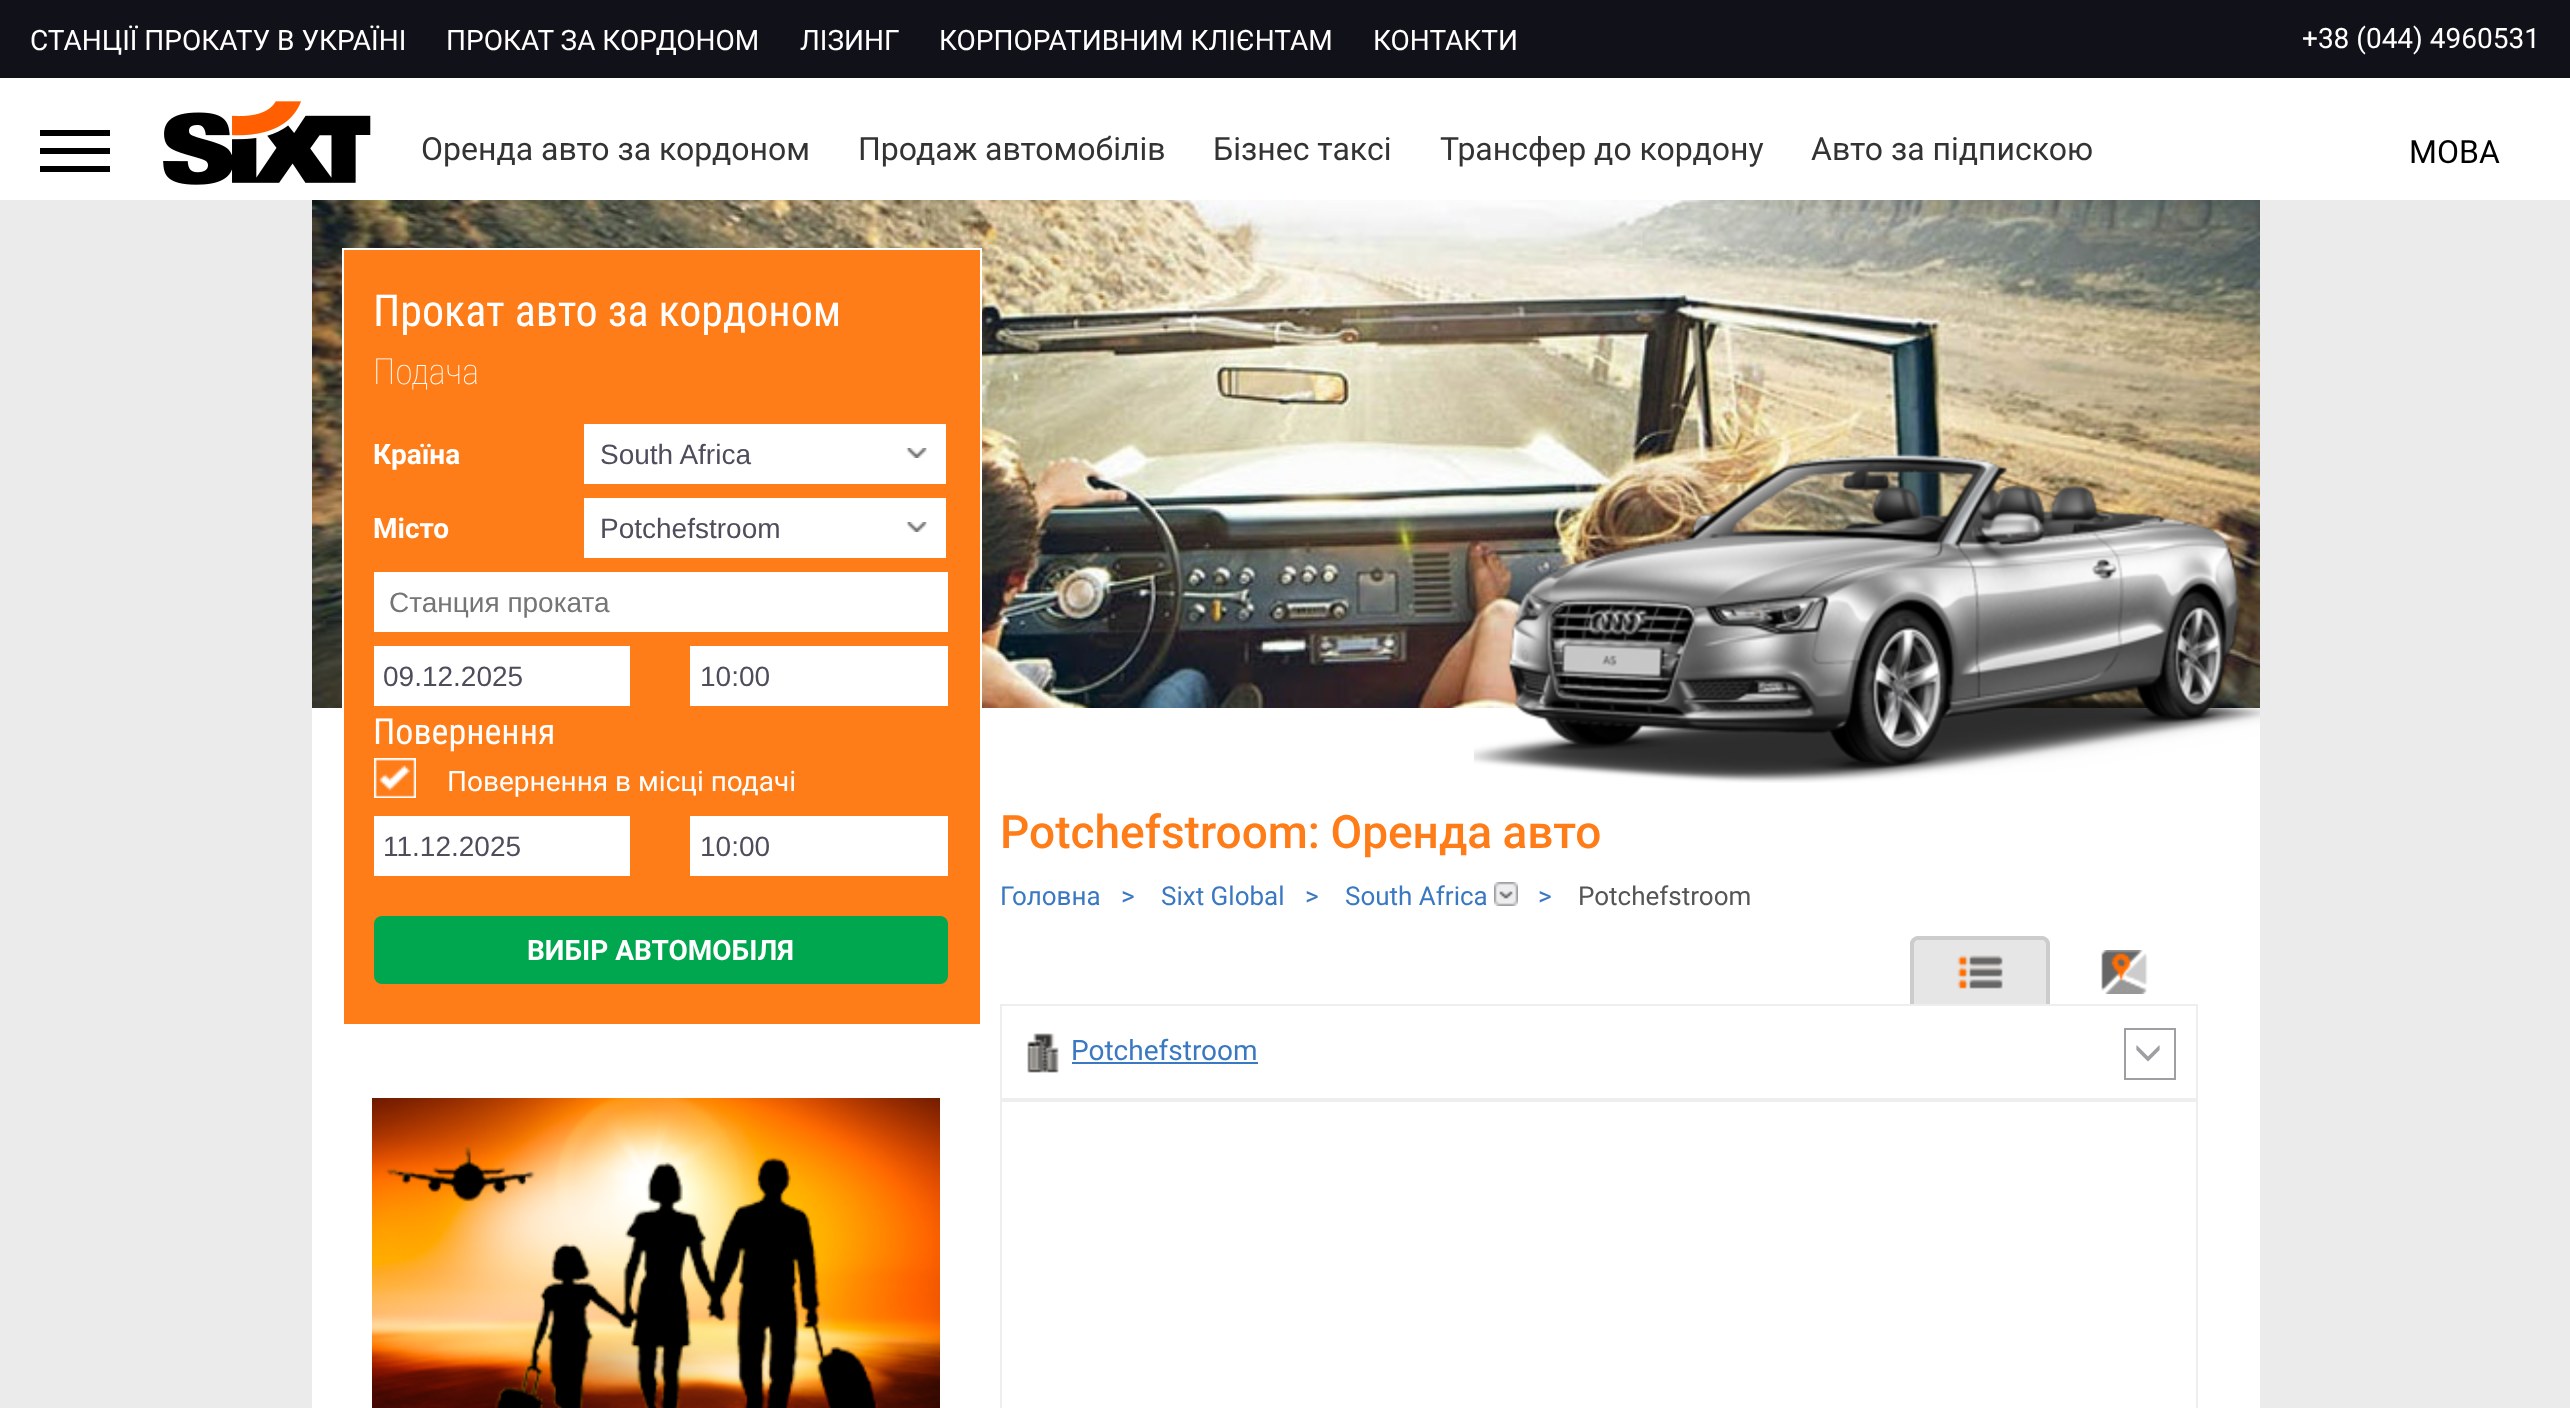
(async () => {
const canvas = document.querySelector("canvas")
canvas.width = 2570
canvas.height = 1408
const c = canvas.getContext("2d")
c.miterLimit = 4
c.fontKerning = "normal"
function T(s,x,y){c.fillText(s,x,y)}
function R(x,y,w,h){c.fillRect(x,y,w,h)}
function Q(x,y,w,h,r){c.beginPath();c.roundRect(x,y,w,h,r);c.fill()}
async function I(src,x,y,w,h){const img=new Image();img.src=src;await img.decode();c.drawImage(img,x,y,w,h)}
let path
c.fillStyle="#fff"
R(0,0,2570,1408)
c.fillStyle="#111119"
R(0,0,2570,78)
c.font="28px Roboto"
c.fillStyle="#fff"
T("СТАНЦІЇ ПРОКАТУ В УКРАЇНІ",30,50)
T("ПРОКАТ ЗА КОРДОНОМ",446,50)
T("ЛІЗИНГ",800,50)
T("КОРПОРАТИВНИМ КЛІЄНТАМ",939,50)
T("КОНТАКТИ",1373,50)
T("+38 (044) 4960531",2302,48)
c.fillStyle="#000"
R(40,130,70,6)
R(40,148,70,6)
R(40,166,70,6)
await I("1.png",163,101,208,84)
c.font="32px Roboto"
c.fillStyle="#333"
T("Оренда авто за кордоном",421,160)
T("Продаж автомобілів",858,160)
T("Бізнес таксі",1213,160)
T("Трансфер до кордону",1440,160)
T("Авто за підпискою",1811,160)
c.fillStyle="#000"
T("МОВА",2409,163)
c.fillStyle="#ebebeb"
R(0,200,2570,1208)
c.fillStyle="#fff"
R(312,708,1948,700)
await I("2.png",312,200,1948,508)
await I("3.png",1474,454,786,329)
c.strokeStyle="#fff"
c.lineWidth=2
c.strokeRect(343,249,638,776)
c.fillStyle="#ff7d19"
R(344,250,636,774)
c.font="44px Roboto Condensed"
c.fillStyle="#fff"
T("Прокат авто за кордоном",373,326)
c.font="100 36px Roboto Condensed"
T("Подача",373,384)
c.font="bold 28px Roboto"
T("Країна",373,464)
R(584,424,362,60)
await I("4.png",906,448,21,10)
c.font="28px Liberation Sans"
c.fillStyle="#4d4d5c"
T("South Africa",600,464)
c.font="bold 28px Roboto"
c.fillStyle="#fff"
T("Місто",373,538)
R(584,498,362,60)
await I("4.png",906,522,21,10)
c.font="28px Liberation Sans"
c.fillStyle="#4d4d5c"
T("Potchefstroom",600,538)
c.fillStyle="#fff"
R(374,572,574,60)
c.fillStyle="#757575"
T("Станция проката",389,612)
c.fillStyle="#fff"
R(374,646,256,60)
c.fillStyle="#4d4d5c"
T("09.12.2025",383,686)
c.fillStyle="#fff"
R(690,646,258,60)
c.fillStyle="#4d4d5c"
T("10:00",700,686)
c.font="36px Roboto Condensed"
c.fillStyle="#fff"
T("Повернення",373,744)
await I("5.png",374,758,42,40)
c.font="28px Roboto"
T("Повернення в місці подачі",447,791)
R(374,816,256,60)
c.font="28px Liberation Sans"
c.fillStyle="#4d4d5c"
T("11.12.2025",383,856)
c.fillStyle="#fff"
R(690,816,258,60)
c.fillStyle="#4d4d5c"
T("10:00",700,856)
c.fillStyle="#00a74f"
Q(374,916,574,68,8)
c.font="bold 28px Roboto"
c.fillStyle="#fff"
T("ВИБІР АВТОМОБІЛЯ",527,960)
await I("6.png",372,1098,568,310)
c.wordSpacing="-1px"
c.font="500 46px Roboto"
c.fillStyle="#ff7d19"
T("Potchefstroom: Оренда авто",1000,848)
c.wordSpacing="0px"
c.font="26px Roboto"
c.fillStyle="#3a78c2"
T("Головна",1000,905)
T(">",1121,905)
T("Sixt Global",1161,905)
T(">",1305,905)
T("South Africa",1345,905)
await I("7.png",1494,882,24,24)
T(">",1538,905)
c.fillStyle="#555"
T("Potchefstroom",1578,905)
c.fillStyle="#e6e6e6"
c.beginPath()
c.roundRect(1910,936,140,70,[8,8,0,0])
c.fill()
await I("8.png",1957,955,46,34)
c.fillStyle="#ccc"
path = new Path2D("M1918 936h124c4 0 8 4 8 8v62h-140v-62c0-4 4-8 8-8zm0 4h124c2 0 4 2 4 4v62h-132v-62c0-2 2-4 4-4z")
c.fill(path,"evenodd")
await I("9.png",2101,950,47,44)
c.strokeStyle="#eee"
c.strokeRect(1001,1005,1196,94)
await I("10.png",1027,1033,32,40)
c.font="28px Roboto"
c.fillStyle="#3a78c2"
T("Potchefstroom",1071,1060)
c.fillStyle="#3979c3"
R(1072,1062,186,2)
c.strokeStyle="#9f9fa3"
c.strokeRect(2125,1029,50,50)
await I("11.png",2136,1045,24,17)
c.strokeStyle="#eee"
c.strokeRect(1001,1101,1196,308)
})()
